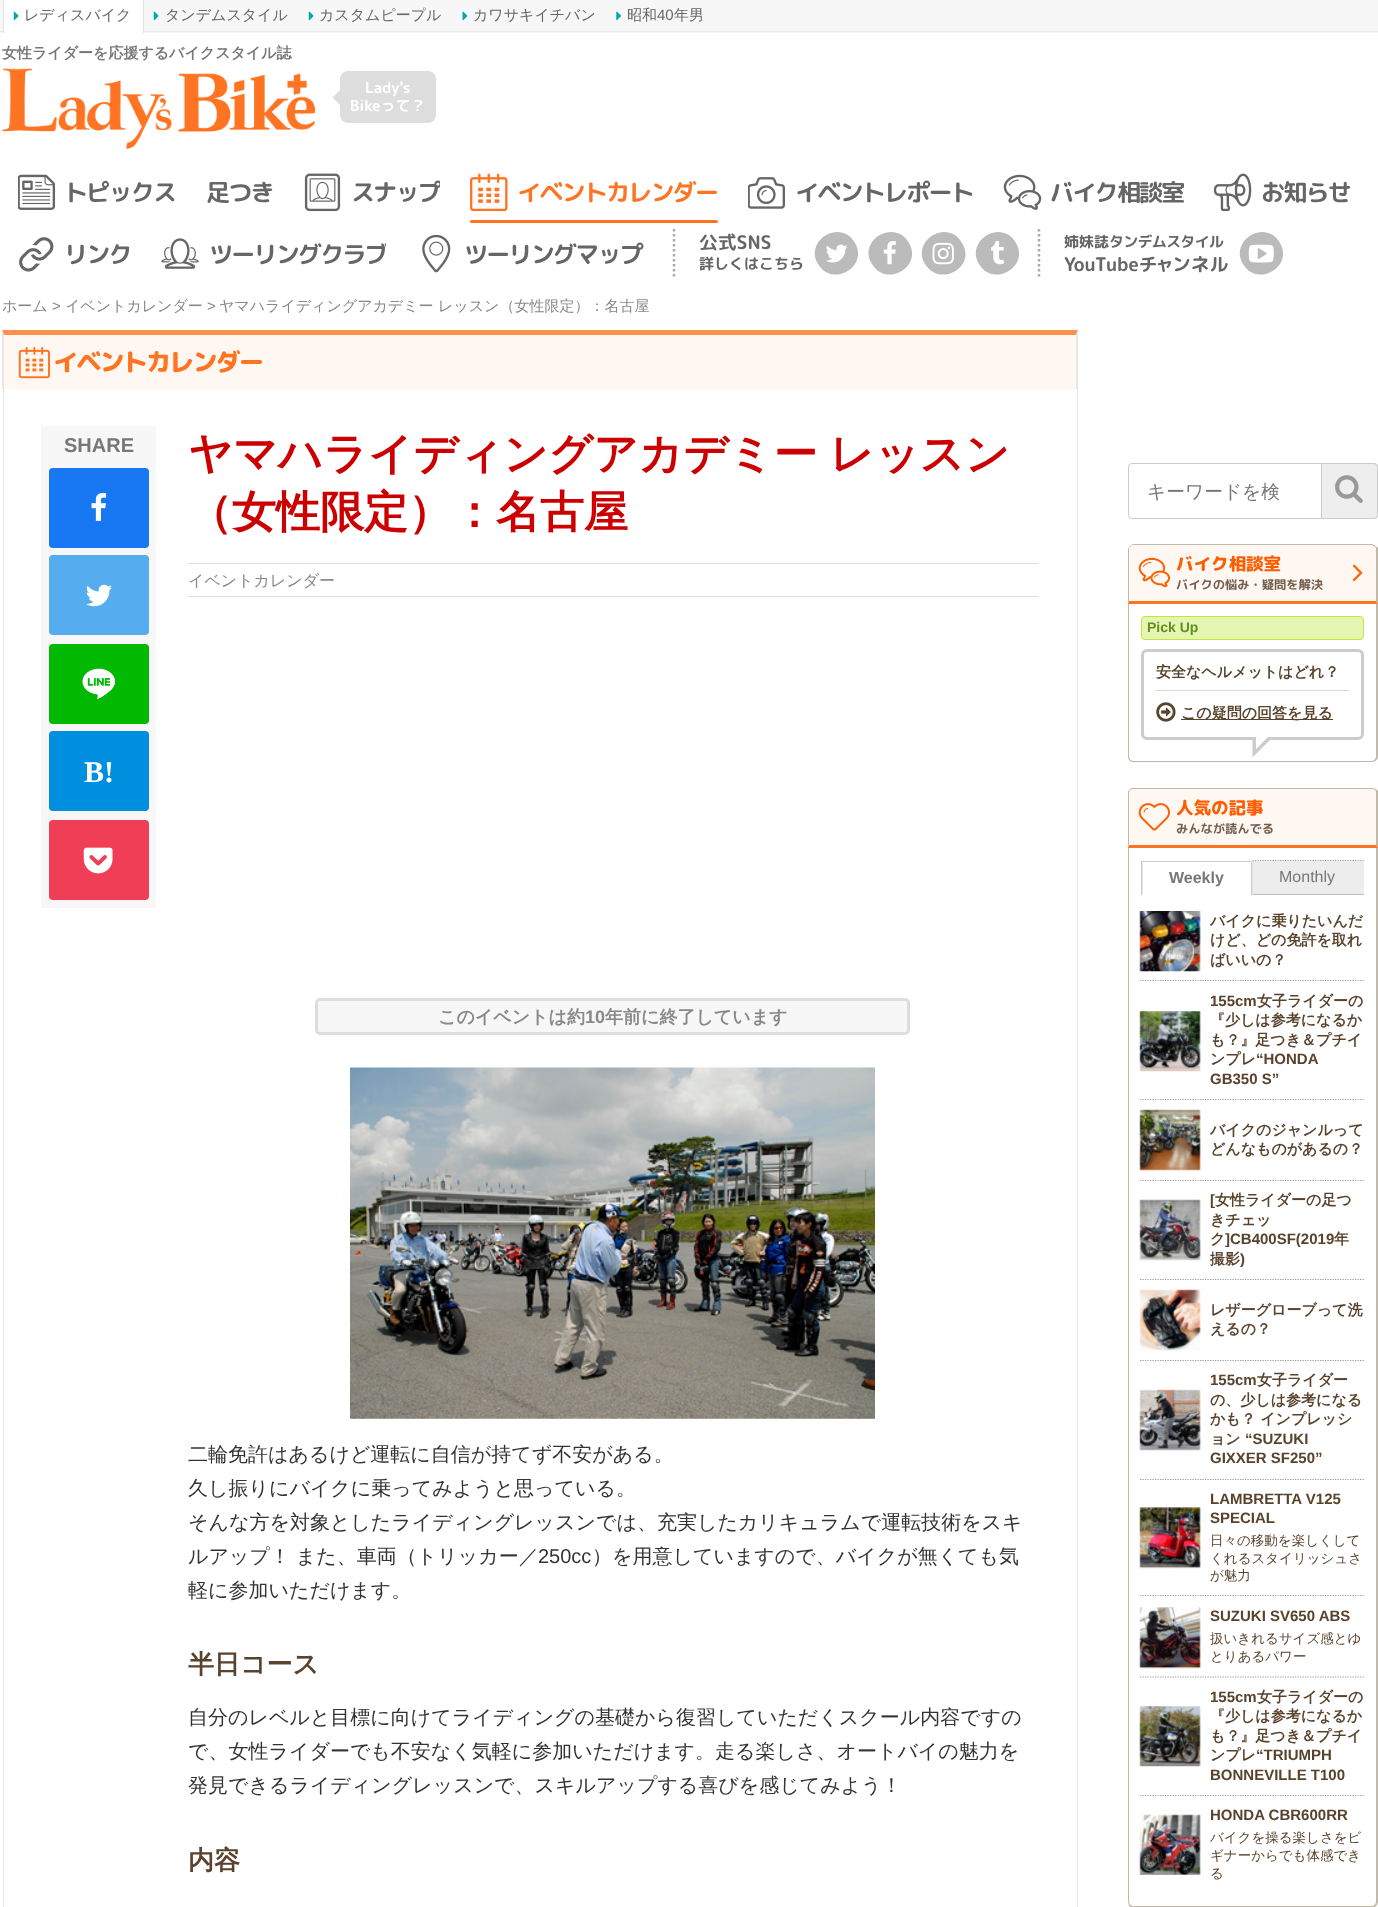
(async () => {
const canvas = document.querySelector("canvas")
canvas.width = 1378
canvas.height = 1907
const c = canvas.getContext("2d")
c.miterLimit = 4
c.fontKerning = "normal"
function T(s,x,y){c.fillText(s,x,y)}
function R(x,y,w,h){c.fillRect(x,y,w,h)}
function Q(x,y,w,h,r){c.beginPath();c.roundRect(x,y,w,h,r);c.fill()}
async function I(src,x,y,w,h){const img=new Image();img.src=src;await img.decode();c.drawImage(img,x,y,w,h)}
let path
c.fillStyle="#fff"
R(0,0,1378,1907)
c.fillStyle="#f7f7f7"
R(0,0,1378,33)
c.fillStyle="#ebebeb"
R(0,31,1378,1)
c.fillStyle="#fff"
R(4,0,139,33)
c.fillStyle="#e3e3e3"
R(143,0,1,33)
R(3,0,1,33)
await I("1.png",13,11,6,10)
c.font="500 15px WenQuanYi Zen Hei"
c.fillStyle="#666"
T("レディスバイク",24,20)
await I("2.png",153,11,6,10)
T("タンデムスタイル",165,20)
await I("2.png",308,11,6,10)
T("カスタムピープル",319,20)
await I("3.png",462,11,6,10)
T("カワサキイチバン",473,20)
await I("4.png",616,11,5,10)
T("昭和",627,20)
c.font="15px Liberation Sans"
T("40",657,20)
c.font="500 15px WenQuanYi Zen Hei"
T("年男",674,20)
c.font="bold 15px WenQuanYi Zen Hei"
c.fillStyle="#777"
T("女性ライダーを応援するバイクスタイル誌",2,58)
await I("5.png",2,68,313,81)
c.fillStyle="#ddd"
Q(340,71,96,52,8)
path = new Path2D("M340 90v15l-7.5-7.5z")
c.fill(path)
c.font="bold 15px 'Rounded Mplus 1c Bold'"
c.fillStyle="#fff"
T("Lady's",365,93)
T("Bikeって？",350,111)
await I("6.png",18,174,37,36)
c.letterSpacing="-1.75px"
c.font="bold 24px 'Rounded Mplus 1c Bold'"
c.fillStyle="#666"
T("トピックス",64,201)
T("足つき",206,201)
await I("7.png",304,173,37,39)
c.save()
c.beginPath()
c.rect(304,161,136,62)
c.clip()
T("スナップ",351,201)
c.restore()
await I("8.png",470,173,38,39)
c.fillStyle="#ff7422"
T("イベントカレンダー",517,201)
Q(470,220,248,3,1.5)
await I("9.png",748,177,37,32)
c.fillStyle="#666"
T("イベントレポート",795,201)
await I("10.png",1003,174,39,36)
T("バイク相談室",1050,201)
await I("11.png",1214,173,38,39)
T("お知らせ",1261,201)
await I("12.png",19,237,35,35)
T("リンク",64,263)
await I("13.png",161,238,38,31)
c.save()
c.beginPath()
c.rect(161,223,225,62)
c.clip()
T("ツーリングクラブ",209,263)
c.restore()
await I("14.png",422,234,29,39)
T("ツーリングマップ",464,263)
path = new Path2D("M674 229v50")
c.strokeStyle="#aaa"
c.lineWidth=2.5
c.setLineDash([2.5,2.5])
c.stroke(path)
c.letterSpacing="0px"
c.font="bold 18.75px 'Rounded Mplus 1c Bold'"
T("公式SNS",699,249)
c.font="bold 15px 'Rounded Mplus 1c Bold'"
T("詳しくはこちら",699,269)
c.fillStyle="#bbb"
path = new Path2D("M855 243c14 24-23 45-37 21c-14-24 23-46 37-21z")
c.fill(path)
await I("15.png",826,244,22,19)
path = new Path2D("M909 243c14 24-23 45-37 21c-15-24 23-46 37-21z")
c.fill(path)
await I("16.png",883,241,13,24)
path = new Path2D("M962 243c15 24-22 45-37 21c-14-24 23-46 37-21z")
c.fill(path)
await I("17.png",932,242,22,23)
path = new Path2D("M1016 243c14 24-23 45-37 21c-14-24 23-46 37-21z")
c.fill(path)
await I("18.png",991,241,14,24)
path = new Path2D("M1039 229v50")
c.stroke(path)
c.fillStyle="#666"
T("姉妹誌",1064,247)
c.letterSpacing="-0.75px"
T("タンデムスタイル",1109,247)
c.letterSpacing="0px"
c.font="bold 18.75px 'Rounded Mplus 1c Bold'"
T("YouTubeチ",1064,271)
T("ャ",1155,271)
T("ンネル",1172,271)
c.fillStyle="#bbb"
path = new Path2D("M1280 243c14 24-23 45-37 21c-14-24 23-46 37-21z")
c.fill(path)
await I("19.png",1248,244,26,19)
c.font="500 15px WenQuanYi Zen Hei"
c.fillStyle="#888"
T("ホーム",2,311)
c.font="15px Liberation Sans"
T(">",52,311)
c.font="500 15px WenQuanYi Zen Hei"
T("イベントカレンダー",65,311)
c.font="15px Liberation Sans"
T(">",207,311)
c.font="500 15px WenQuanYi Zen Hei"
T("ヤマハライディングアカデミー レッスン（女性限定）：名古屋",219,311)
c.strokeStyle="#e7e7e7"
c.lineWidth=1
c.setLineDash([])
c.strokeRect(3.5,388.5,1074,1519)
c.fillStyle="#fff7f2"
R(3,330,1075,59)
c.fillStyle="#ff904e"
path = new Path2D("M2 330h1076l-2 5h-1072z")
c.fill(path)
c.fillStyle="#e7e7e7"
path = new Path2D("M1078 330v59h-2v-54z")
c.fill(path)
path = new Path2D("M2 389v-59l2 5v54z")
c.fill(path)
await I("20.png",18,347,32,32)
c.letterSpacing="-1.75px"
c.font="800 25px 'Rounded Mplus 1c'"
c.fillStyle="#ff7422"
T("イベントカレンダー",53,371)
c.fillStyle="#f7f7f7"
R(41,426,115,482)
c.letterSpacing="0px"
c.font="bold 20px Liberation Sans"
c.fillStyle="#777"
T("SHARE",64,452)
c.fillStyle="#1877f2"
Q(49,468,100,80,4)
await I("21.png",91,493,16,28)
c.fillStyle="#55acee"
Q(49,555,100,80,4)
await I("22.png",86,584,26,23)
c.fillStyle="#00b900"
Q(49,644,100,80,4)
await I("23.png",82,668,33,31)
c.fillStyle="#008fde"
Q(49,731,100,80,4)
c.font="bold 30px Liberation Serif"
c.fillStyle="#fff"
T("B!",84,782)
c.fillStyle="#ef3e56"
Q(49,820,100,80,4)
await I("24.png",83,847,30,27)
c.wordSpacing="-1px"
c.font="bold 44px WenQuanYi Zen Hei"
c.fillStyle="#c00"
T("ヤマハライディングアカデミー レッスン",188,469)
c.wordSpacing="0px"
T("（女性限定）：名古屋",188,527)
c.fillStyle="#ddd"
R(188,563,850,1)
R(188,596,850,1)
c.font="500 16px WenQuanYi Zen Hei"
c.fillStyle="#888"
T("イベントカレンダー",188,586)
c.fillStyle="#f7f7f7"
c.beginPath()
c.roundRect(316.5,999.5,592,34,3.5)
c.fill()
c.strokeStyle="#ddd"
c.lineWidth=3
c.stroke()
c.font="bold 18px WenQuanYi Zen Hei"
c.fillStyle="#888"
T("このイベントは約",438,1023)
c.font="bold 18px Liberation Sans"
T("10",585,1023)
c.font="bold 18px WenQuanYi Zen Hei"
T("年前に終了しています",605,1023)
await I("25.png",350,1067,525,352)
c.font="500 20px WenQuanYi Zen Hei"
c.fillStyle="#333"
T("二輪免許はあるけど運転に自信が持てず不安がある。",188,1461)
T("久し振りにバイクに乗ってみようと思っている。",188,1495)
T("そんな方を対象としたライディングレッスンでは、充実したカリキュラムで運転技術をスキ",188,1529)
T("ルアップ！ また、車両（トリッカー／",188,1563)
c.font="20px Liberation Sans"
T("250cc",538,1563)
c.font="500 20px WenQuanYi Zen Hei"
T("）を用意していますので、バイクが無くても気",592,1563)
T("軽に参加いただけます。",188,1597)
c.font="bold 26px WenQuanYi Zen Hei"
c.fillStyle="#59432c"
T("半日コース",188,1673)
c.font="500 20px WenQuanYi Zen Hei"
c.fillStyle="#333"
T("自分のレベルと目標に向けてライディングの基礎から復習していただくスクール内容ですの",188,1724)
T("で、女性ライダーでも不安なく気軽に参加いただけます。走る楽しさ、オートバイの魅力を",188,1758)
T("発見できるライディングレッスンで、スキルアップする喜びを感じてみよう！",188,1792)
c.font="bold 26px WenQuanYi Zen Hei"
c.fillStyle="#59432c"
T("内容",188,1869)
c.beginPath()
c.roundRect(1128.5,463.5,249,55,3.5)
c.strokeStyle="#ccc"
c.lineWidth=1
c.stroke()
c.font="500 18.75px WenQuanYi Zen Hei"
c.fillStyle="#777"
T("キーワードを検",1147,498)
c.fillStyle="#eee"
c.beginPath()
c.roundRect(1321.5,463.5,56,55,[0,3.5,3.5,0])
c.fill()
c.stroke()
await I("26.png",1335,475,28,28)
c.fillStyle="#fff7f2"
c.beginPath()
c.roundRect(1129,545,247,56,[5,5,0,0])
c.fill()
c.fillStyle="#c3b9ab"
path = new Path2D("M1134 544c-2 0-3 1-4 2v1c1-2 3-2 4-2h238l3 2l1-1c-2-1-3-2-5-2z")
c.fill(path)
path = new Path2D("M1376 546l2 2v56l-2-3v-51c0-1 0-3-1-3z")
c.fill(path)
c.fillStyle="#ff7422"
path = new Path2D("M1378 604h-250l1-3h247z")
c.fill(path)
c.fillStyle="#c3b9ab"
path = new Path2D("M1130 546c-1 1-2 2-2 4v53l1-2v-51c0-1 0-3 1-3z")
c.fill(path)
await I("27.png",1138,557,32,31)
c.font="800 17.5px 'Rounded Mplus 1c'"
c.fillStyle="#fd5e00"
T("バイク相談室",1176,570)
c.font="bold 12.25px 'Rounded Mplus 1c Bold'"
c.fillStyle="#725f4c"
T("バイクの悩み・疑問を解決",1176,589)
await I("28.png",1352,564,11,18)
c.fillStyle="#c3b9ab"
path = new Path2D("M1128 604h250v152c0 4-3 6-7 6h-237c-4 0-6-2-6-6zm1 0h247v152c0 3-2 5-5 5h-237c-3 0-5-2-5-5z")
c.fill(path,"evenodd")
c.fillStyle="#e6f5b1"
c.beginPath()
c.roundRect(1141.5,616.5,222,23,3.5)
c.fill()
c.strokeStyle="#bfe63e"
c.stroke()
c.font="bold 14px Liberation Sans"
c.fillStyle="#5e921f"
T("Pick Up",1147,632)
c.beginPath()
c.roundRect(1142.5,650.5,220,88,4.5)
c.strokeStyle="#ccc"
c.lineWidth=3
c.stroke()
c.fillStyle="#dcd6cd"
R(1156,690,193,1)
c.font="bold 15px WenQuanYi Zen Hei"
c.fillStyle="#59432c"
T("安全なヘルメットはどれ？",1156,677)
await I("29.png",1156,702,20,20)
R(1181,719,152,1)
T("この疑問の回答を見る",1181,718)
c.fillStyle="#ccc"
path = new Path2D("M1252.5 737.5h20l-10 10z")
c.fill(path)
path = new Path2D("M1252.5 757.5v-20l10 10z")
c.fill(path)
c.fillStyle="#fff"
path = new Path2D("M1256 736h13l-6.5 6.5z")
c.fill(path)
path = new Path2D("M1256 749v-13l6.5 6.5z")
c.fill(path)
c.fillStyle="#fff7f2"
c.beginPath()
c.roundRect(1129,789,247,56,[5,5,0,0])
c.fill()
c.fillStyle="#c3b9ab"
path = new Path2D("M1134 788c-2 0-4 0-4 2l3-1h238c1 0 3 0 4 1l1-1c-2-1-3-1-5-1z")
c.fill(path)
path = new Path2D("M1376 789l2 2v57l-2-4v-50c0-2 0-3-1-4z")
c.fill(path)
c.fillStyle="#ff7422"
path = new Path2D("M1378 848h-250l1-4v1h247v-1z")
c.fill(path)
c.fillStyle="#c3b9ab"
path = new Path2D("M1130 790c-2 0-2 2-2 4v52l1-2v-50c0-2 1-3 1-4z")
c.fill(path)
await I("30.png",1138,803,32,28)
c.font="800 17.5px 'Rounded Mplus 1c'"
c.fillStyle="#fd5e00"
T("人気の記事",1176,814)
c.font="bold 12.25px 'Rounded Mplus 1c Bold'"
c.fillStyle="#725f4c"
T("みんなが読んでる",1176,833)
c.fillStyle="#c3b9ab"
path = new Path2D("M1128 848h250v1053c0 4-3 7-7 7h-237c-4 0-6-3-6-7zm1 0h247v1053c0 3-2 5-5 5h-237c-3 0-5-2-5-5z")
c.fill(path,"evenodd")
c.fillStyle="#ccc"
path = new Path2D("M1141 861h111l-1 1h-109z")
c.fill(path)
path = new Path2D("M1252.5 861v34h-1.5v-32.5z")
c.fill(path)
c.fillStyle="#00000033"
path = new Path2D("M1141 895v-34l1.5 1.5v32.5z")
c.fill(path)
c.font="bold 16px Liberation Sans"
c.fillStyle="#777"
T("Weekly",1169,883)
path = new Path2D("M1252.5 860.5h111.5")
c.strokeStyle="#999"
c.lineWidth=1.2
c.setLineDash([1.25,1.25])
c.stroke(path)
c.fillStyle="#00000012"
R(1253,861,111,33)
c.fillStyle="#bebebe"
R(1253,894,111,1)
c.font="16px Liberation Sans"
c.fillStyle="#777"
T("Monthly",1279,882)
await I("31.png",1139,911,62,61)
c.font="bold 15px WenQuanYi Zen Hei"
c.fillStyle="#59432c"
T("バイクに乗りたいんだ",1210,926)
T("けど、どの免許を取れ",1210,945)
T("ばいいの？",1210,965)
path = new Path2D("M1140 980.5h225")
c.stroke(path)
await I("32.png",1139,1011,62,61)
c.font="bold 15px Liberation Sans"
T("155cm",1210,1006)
c.font="bold 15px WenQuanYi Zen Hei"
T("女子ライダーの",1257,1006)
T("『少しは参考になるか",1210,1025)
T("も？』足つき＆プチイ",1210,1045)
T("ンプレ",1210,1064)
c.font="bold 15px Liberation Sans"
T("“HONDA",1256,1064)
T("GB350 S”",1210,1084)
path = new Path2D("M1140 1099.5h225")
c.stroke(path)
await I("33.png",1139,1109,62,62)
c.font="bold 15px WenQuanYi Zen Hei"
T("バイクのジャンルって",1210,1135)
T("どんなものがあるの？",1210,1154)
path = new Path2D("M1140 1180.5h225")
c.stroke(path)
await I("34.png",1139,1199,62,62)
c.font="bold 15px Liberation Sans"
T("[",1210,1205)
c.font="bold 15px WenQuanYi Zen Hei"
T("女性ライダーの足つ",1215,1205)
T("きチェッ",1210,1225)
T("ク",1210,1244)
c.font="bold 15px Liberation Sans"
T("]CB400SF(2019",1225,1244)
c.font="bold 15px WenQuanYi Zen Hei"
T("年",1334,1244)
T("撮影",1210,1264)
c.font="bold 15px Liberation Sans"
T(")",1240,1264)
path = new Path2D("M1140 1279.5h225")
c.stroke(path)
await I("35.png",1139,1289,62,62)
c.font="bold 15px WenQuanYi Zen Hei"
T("レザーグローブって洗",1210,1315)
T("えるの？",1210,1334)
path = new Path2D("M1140 1360.5h225")
c.stroke(path)
await I("36.png",1139,1389,62,62)
c.font="bold 15px Liberation Sans"
T("155cm",1210,1385)
c.font="bold 15px WenQuanYi Zen Hei"
T("女子ライダー",1257,1385)
T("の、少しは参考になる",1210,1405)
T("かも？ インプレッシ",1210,1424)
T("ョン",1210,1444)
c.font="bold 15px Liberation Sans"
T("“SUZUKI",1245,1444)
T("GIXXER SF250”",1210,1463)
path = new Path2D("M1140 1479.5h225")
c.stroke(path)
await I("37.png",1139,1507,62,62)
T("LAMBRETTA V125",1210,1504)
T("SPECIAL",1210,1523)
c.font="500 13.5px WenQuanYi Zen Hei"
T("日々の移動を楽しくして",1210,1545)
T("くれるスタイリッシュさ",1210,1563)
T("が魅力",1210,1580)
path = new Path2D("M1140 1595.5h225")
c.stroke(path)
await I("38.png",1139,1607,62,62)
c.font="bold 15px Liberation Sans"
T("SUZUKI SV650 ABS",1210,1621)
c.font="500 13.5px WenQuanYi Zen Hei"
T("扱いきれるサイズ感とゆ",1210,1643)
T("とりあるパワー",1210,1661)
path = new Path2D("M1140 1677h225")
c.stroke(path)
await I("39.png",1139,1706,62,61)
c.font="bold 15px Liberation Sans"
T("155cm",1210,1702)
c.font="bold 15px WenQuanYi Zen Hei"
T("女子ライダーの",1257,1702)
T("『少しは参考になるか",1210,1721)
T("も？』足つき＆プチイ",1210,1741)
T("ンプレ",1210,1760)
c.font="bold 15px Liberation Sans"
T("“TRIUMPH",1256,1760)
T("BONNEVILLE T100",1210,1780)
path = new Path2D("M1140 1795.5h225")
c.stroke(path)
await I("40.png",1139,1814,62,61)
T("HONDA CBR600RR",1210,1820)
c.font="500 13.5px WenQuanYi Zen Hei"
T("バイクを操る楽しさをビ",1210,1842)
T("ギナーからでも体感でき",1210,1860)
T("る",1210,1878)
})()
